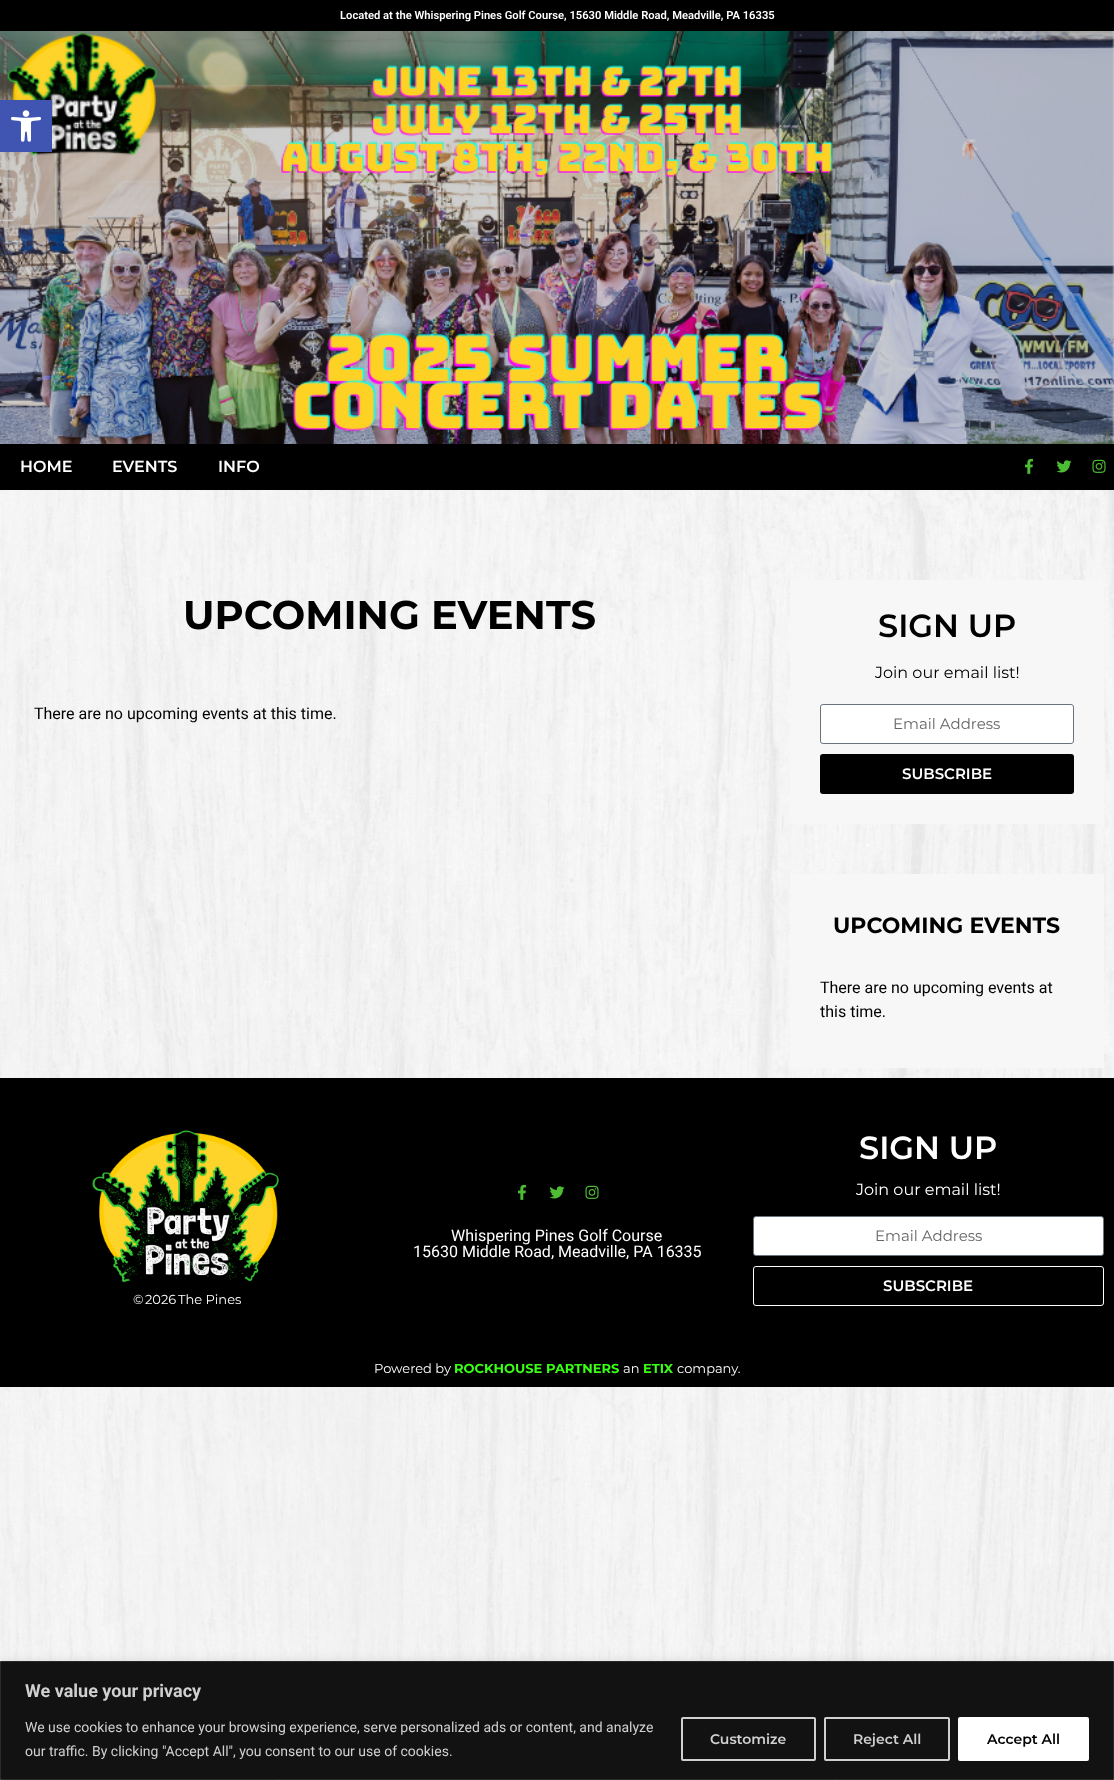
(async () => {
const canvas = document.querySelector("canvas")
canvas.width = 1114
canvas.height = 1780
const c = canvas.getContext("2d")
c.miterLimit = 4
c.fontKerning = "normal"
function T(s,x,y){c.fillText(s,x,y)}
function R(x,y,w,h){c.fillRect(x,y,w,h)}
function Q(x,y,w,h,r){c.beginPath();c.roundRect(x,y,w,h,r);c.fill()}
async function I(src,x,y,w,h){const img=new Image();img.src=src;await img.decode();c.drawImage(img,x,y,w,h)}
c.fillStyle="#fff"
R(0,0,1114,1780)
await I("1.png",0,490,1114,1171)
c.fillStyle="#000"
R(0,0,1114,31)
c.font="600 11.2px Roboto"
c.fillStyle="#fff"
T("Located at the Whispering Pines Golf Course, 15630 Middle Road, Meadville, PA 16335",340,19)
await I("2.png",0,31,1114,413)
c.fillStyle="#000"
R(0,444,1114,46)
c.font="600 16px Montserrat"
c.fillStyle="#fff"
T("HOME",20,472)
T("EVENTS",112,472)
T("INFO",218,472)
await I("3.png",1025,458,8,16)
await I("4.png",1056,460,16,13)
await I("5.png",1092,459,14,14)
c.fillStyle="#0000001a"
c.filter="blur(5px)"
c.beginPath()
c.rect(0,100,52,52)
c.fill()
c.filter="none"
c.fillStyle="#4054b2"
R(0,100,52,52)
await I("6.png",11,110,30,32)
c.font="bold 40px Montserrat"
c.fillStyle="#000"
T("UPCOMING EVENTS",183,629)
c.font="16px Roboto"
T("There are no upcoming events at this time.",34,719)
c.fillStyle="#f7f7f7"
R(790,580,314,244)
c.font="600 32px Montserrat"
c.fillStyle="#000"
T("SIGN UP",878,637)
c.font="16px Montserrat"
T("Join our email list!",875,678)
c.fillStyle="#fff"
c.beginPath()
c.roundRect(820.5,704.5,253,39,2.5)
c.fill()
c.strokeStyle="#69727d"
c.stroke()
c.font="15px Montserrat"
c.fillStyle="#666"
T("Email Address",893,729)
c.fillStyle="#000"
Q(820,754,254,40,3)
c.font="600 15px Montserrat"
c.fillStyle="#fff"
T("SUBSCRIBE",902,779)
c.fillStyle="#f7f7f7"
R(790,874,314,194)
c.font="bold 22px Montserrat"
c.fillStyle="#000"
T("UPCOMING EVENTS",833,933)
c.font="16px Roboto"
T("There are no upcoming events at",820,993)
T("this time.",820,1017)
R(0,1078,1114,309)
await I("3.png",518,1184,8,16)
await I("4.png",549,1186,16,13)
await I("5.png",585,1185,14,14)
c.fillStyle="#fff"
T("Whispering Pines Golf Course",451,1241)
T("15630 Middle Road, Meadville, PA 16335",413,1257)
c.font="600 32px Montserrat"
T("SIGN UP",859,1159)
c.font="16px Montserrat"
T("Join our email list!",856,1195)
c.beginPath()
c.roundRect(753.5,1216.5,350,39,2.5)
c.fill()
c.stroke()
c.font="15px Montserrat"
c.fillStyle="#666"
T("Email Address",875,1241)
c.beginPath()
c.roundRect(753.5,1266.5,350,39,2.5)
c.strokeStyle="#fff"
c.stroke()
c.font="600 15px Montserrat"
c.fillStyle="#fff"
T("SUBSCRIBE",883,1291)
await I("7.png",92,1130,187,153)
c.font="13px Montserrat"
T("©",133,1304)
T("2026",145,1304)
T("The Pines",178,1304)
T("Powered by",374,1373)
c.font="bold 13px Montserrat"
c.fillStyle="#39ff14"
T("ROCKHOUSE PARTNERS",454,1373)
c.font="13px Montserrat"
c.fillStyle="#fff"
T("an",623,1373)
c.font="bold 13px Montserrat"
c.fillStyle="#39ff14"
T("ETIX",643,1373)
c.font="13px Montserrat"
c.fillStyle="#fff"
T("company.",677,1373)
c.fillStyle="#acabab4d"
c.filter="blur(5px)"
c.beginPath()
c.rect(0,1660,1114,119)
c.fill()
c.filter="none"
c.fillStyle="#121212"
c.beginPath()
c.rect(.5,1661.5,1113,118)
c.fill()
c.strokeStyle="#2a2a2a"
c.stroke()
c.font="bold 18px Roboto"
c.fillStyle="#d0d0d0"
T("We value your privacy",25,1697)
c.font="14px Roboto"
T("We use cookies to enhance your browsing experience, serve personalized ads or content, and analyze",25,1732)
T("our traffic. By clicking \"Accept All\", you consent to our use of cookies.",25,1756)
c.beginPath()
c.roundRect(682,1718,133,42,1)
c.strokeStyle="#d0d0d0"
c.lineWidth=2
c.stroke()
c.font="600 14px Montserrat"
T("Customize",710,1744)
c.beginPath()
c.roundRect(825,1718,124,42,1)
c.stroke()
T("Reject All",853,1744)
c.fillStyle="#fff"
c.beginPath()
c.roundRect(959,1718,129,42,1)
c.fill()
c.strokeStyle="#fff"
c.stroke()
c.fillStyle="#000"
T("Accept All",987,1744)
})()
